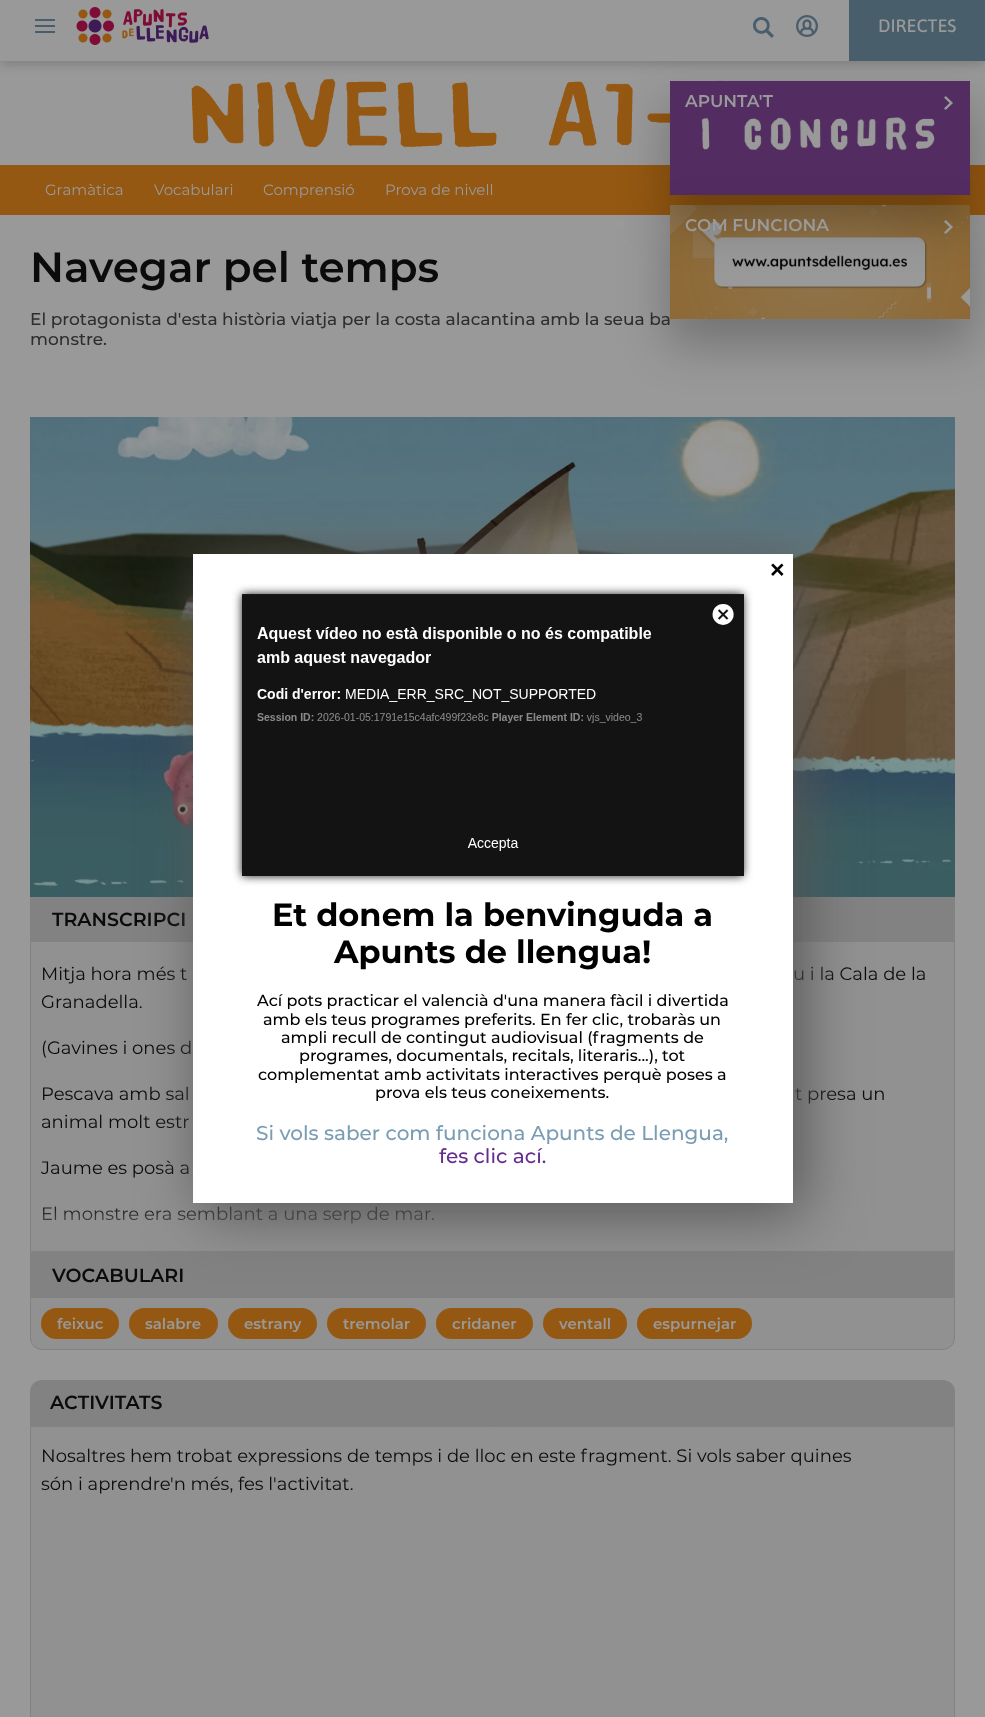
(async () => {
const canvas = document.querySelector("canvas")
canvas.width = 985
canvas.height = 1717
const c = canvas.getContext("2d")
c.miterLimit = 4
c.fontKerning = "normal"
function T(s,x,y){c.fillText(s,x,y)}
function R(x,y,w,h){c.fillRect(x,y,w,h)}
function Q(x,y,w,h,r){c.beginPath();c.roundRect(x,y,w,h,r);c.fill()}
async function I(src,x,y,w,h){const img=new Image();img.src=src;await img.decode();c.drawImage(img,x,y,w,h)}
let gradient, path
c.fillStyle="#999"
R(0,0,985,1717)
await I("1.png",191,78,587,70)
c.fillStyle="#945812"
R(0,165,985,50)
c.font="15px Montserrat"
c.fillStyle="#999"
T("Gramàtica",45,195)
T("Vocabulari",154,195)
T("Comprensió",263,195)
T("Prova de nivell",385,195)
c.fillStyle="#00000026"
c.filter="blur(5px)"
c.beginPath()
c.rect(0,-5,985,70)
c.fill()
c.filter="none"
await I("5.png",670,81,300,114)
await I("7.png",670,205,300,114)
c.save()
path = new Path2D("M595 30h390v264h-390zm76 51h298c.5 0 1 .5 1 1v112c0 .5-.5 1-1 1h-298c-.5 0-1-.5-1-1v-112c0-.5 .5-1 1-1z")
c.clip(path,"evenodd")
c.fillStyle="#00000040"
c.filter="blur(24px)"
c.beginPath()
c.roundRect(668,103,304,118,3)
c.fill()
c.filter="none"
c.restore()
c.fillStyle="#999"
R(0,0,849,61)
c.fillStyle="#495e6b"
R(35,19,20,2)
R(35,25,20,2)
R(35,31,20,2)
await I("2.png",76,7,133,38)
await I("3.png",753,17,21,21)
await I("4.png",796,15,22,22)
R(849,0,136,61)
c.font="500 18px Asap"
c.fillStyle="#999"
T("DIRECTES",878,32)
c.font="600 17px Montserrat"
T("APUNTA'T",685,107)
await I("6.png",944,96,9,14)
await I("9.png",30,417,925,480)
c.save()
path = new Path2D("M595 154h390v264h-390zm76 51h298c.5 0 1 .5 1 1v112c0 .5-.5 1-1 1h-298c-.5 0-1-.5-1-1v-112c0-.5 .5-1 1-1z")
c.clip(path,"evenodd")
c.fillStyle="#00000040"
c.filter="blur(24px)"
c.beginPath()
c.roundRect(668,227,304,118,3)
c.fill()
c.filter="none"
c.restore()
T("COM FUNCIONA",685,231)
await I("8.png",944,220,9,14)
c.font="600 42px Montserrat"
c.fillStyle="#0b0b0b"
T("Navegar pel temps",30,282)
c.font="500 17px Montserrat"
c.fillStyle="#2e2e2e"
T("El protagonista d'esta història viatja per la costa alacantina amb la seua ba",30,325)
T("monstre.",30,345)
c.fillStyle="#919191"
R(31,942,923,309)
c.strokeStyle="#828282"
c.strokeRect(30.5,897.5,924,354)
c.fillStyle="#828282"
R(31,898,923,44)
c.font="600 19px Montserrat"
c.fillStyle="#0b0b0b"
T("TRANSCRIPCI",52,926)
c.font="18px Montserrat"
T("Mitja hora més t",41,980)
T("u i la Cala de la",793,980)
T("Granadella.",41,1008)
T("(Gavines i ones d",41,1054)
T("Pescava amb sal",41,1100)
T("t presa un",795,1100)
T("animal molt estr",41,1128)
T("Jaume es posà a",41,1174)
T("El monstre era semblant a una serp de mar.",41,1220)
gradient = c.createLinearGradient(493,1251,493,1201)
gradient.addColorStop(0,"#919191")
gradient.addColorStop(1,"#91919100")
c.fillStyle = gradient
R(43,1206,391,18)
c.fillStyle="#919191"
c.beginPath()
c.roundRect(30.5,1252.5,924,97,[0,0,11.5,11.5])
c.fill()
c.stroke()
c.fillStyle="#828282"
R(31,1253,923,45)
c.font="600 19px Montserrat"
c.fillStyle="#0b0b0b"
T("VOCABULARI",52,1282)
c.fillStyle="#945812"
Q(41,1308,78,31,15.5)
c.font="600 15px Montserrat"
c.fillStyle="#999"
T("feixuc",57,1329)
c.fillStyle="#945812"
Q(129,1308,89,31,15.5)
c.fillStyle="#999"
T("salabre",145,1329)
c.fillStyle="#945812"
Q(228,1308,89,31,15.5)
c.fillStyle="#999"
T("estrany",244,1329)
c.fillStyle="#945812"
Q(327,1308,99,31,15.5)
c.fillStyle="#999"
T("tremolar",343,1329)
c.fillStyle="#945812"
Q(436,1308,97,31,15.5)
c.fillStyle="#999"
T("cridaner",452,1329)
c.fillStyle="#945812"
Q(543,1308,84,31,15.5)
c.fillStyle="#999"
T("ventall",559,1329)
c.fillStyle="#945812"
Q(637,1308,115,31,15.5)
c.fillStyle="#999"
T("espurnejar",653,1329)
c.fillStyle="#828282"
c.beginPath()
c.roundRect(30,1380,925,46,[12,12,0,0])
c.fill()
c.font="600 19px Montserrat"
c.fillStyle="#0b0b0b"
T("ACTIVITATS",50,1409)
c.fillStyle="#919191"
c.beginPath()
c.rect(30.5,1426.5,924,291)
c.fill()
c.stroke()
c.font="18px Montserrat"
c.fillStyle="#0b0b0b"
T("Nosaltres hem trobat expressions de temps i de lloc en este fragment. Si vols saber quines",41,1462)
T("són i aprendre'n més, fes l'activitat.",41,1490)
c.fillStyle="#555"
c.filter="blur(30px)"
c.beginPath()
c.rect(203,564,600,649)
c.fill()
c.filter="none"
c.fillStyle="#fff"
R(193,554,600,649)
c.font="bold 25px Liberation Sans"
c.fillStyle="#000"
T("×",770,578)
c.fillStyle="#191919"
c.filter="blur(5px)"
c.beginPath()
c.rect(242,594,501,282)
c.fill()
c.filter="none"
await I("10.png",242,594,502,282)
c.font="bold 32px Montserrat"
c.fillStyle="#000"
T("Et donem la benvinguda a",272,926)
T("Apunts de llengua!",334,963)
c.font="500 16px Montserrat"
T("Ací pots practicar el valencià d'una manera fàcil i divertida",257,1006)
T("amb els teus programes preferits. En fer clic, trobaràs un",263,1025)
T("ampli recull de contingut audiovisual (fragments de",281,1043)
T("programes, documentals, recitals, literaris...), tot",299,1061)
T("complementat amb activitats interactives perquè poses a",258,1080)
T("prova els teus coneixements.",375,1098)
c.font="500 20px Montserrat"
c.fillStyle="#7a9db3"
T("Si vols saber com funciona Apunts de Llengua,",256,1140)
c.fillStyle="#662d91"
T("fes clic ací.",439,1163)
})()
